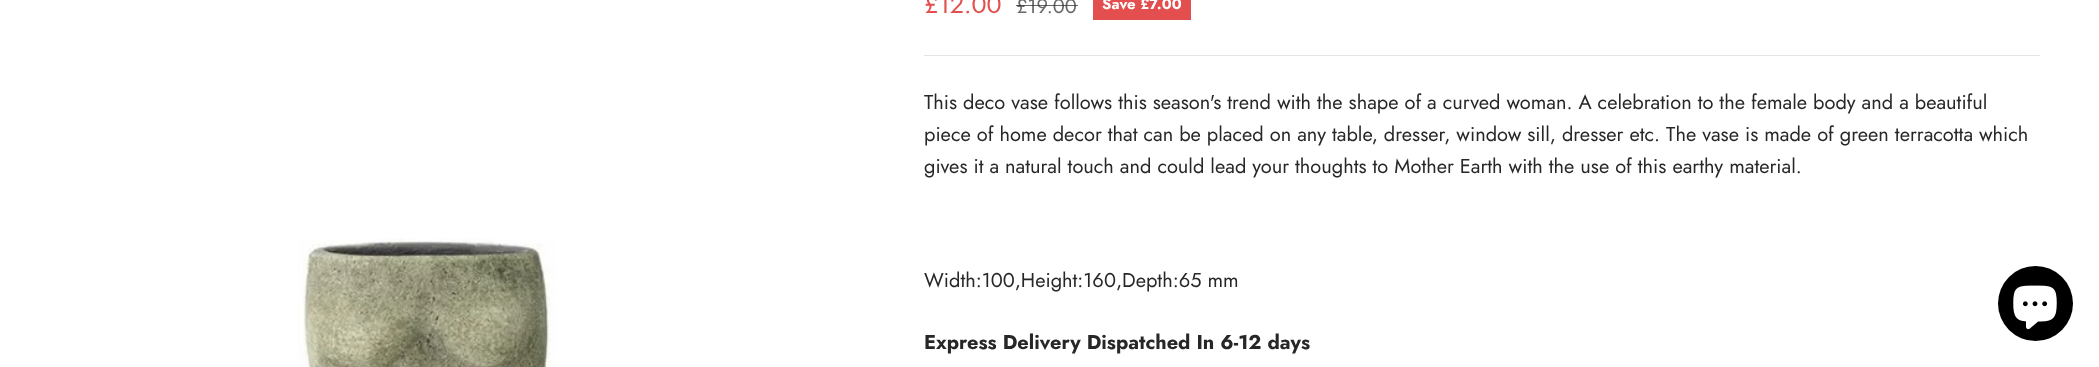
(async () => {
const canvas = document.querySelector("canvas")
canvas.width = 2099
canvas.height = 367
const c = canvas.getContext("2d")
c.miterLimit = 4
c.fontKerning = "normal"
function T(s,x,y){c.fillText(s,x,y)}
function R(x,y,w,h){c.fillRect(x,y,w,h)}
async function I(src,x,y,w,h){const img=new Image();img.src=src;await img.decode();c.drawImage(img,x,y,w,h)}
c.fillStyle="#fff"
R(0,0,2099,367)
await I("1.png",298,238,258,129)
c.font="25px Jost"
c.fillStyle="#e34f4f"
T("£12.00",924,13)
c.font="20px Jost"
c.fillStyle="#686868"
T("£19.00",1016,13)
c.fillStyle="#272727b3"
R(1016,5,62,1)
c.fillStyle="#e34f4f"
R(1093,0,98,20)
c.font="bold 15px Jost"
c.fillStyle="#fff"
T("Save £7.00",1102,9)
c.fillStyle="#e5e5e5"
R(924,55,1116,1)
c.font="20px Jost"
c.fillStyle="#272727"
T("This deco vase follows this season's trend with the shape of a curved woman. A celebration to the female body and a beautiful",924,109)
T("piece of home decor that can be placed on any table, dresser, window sill, dresser etc. The vase is made of green terracotta which",924,141)
T("gives it a natural touch and could lead your thoughts to Mother Earth with the use of this earthy material.",924,173)
T("Width:100,Height:160,Depth:65 mm",924,287)
c.font="bold 20px Jost"
T("Express Delivery Dispatched In 6-12 days",924,349)
c.fillStyle="#000"
c.beginPath()
c.arc(2035.5,303.5,37.5,0,7)
c.fill()
await I("2.png",2013,285,44,45)
})()
